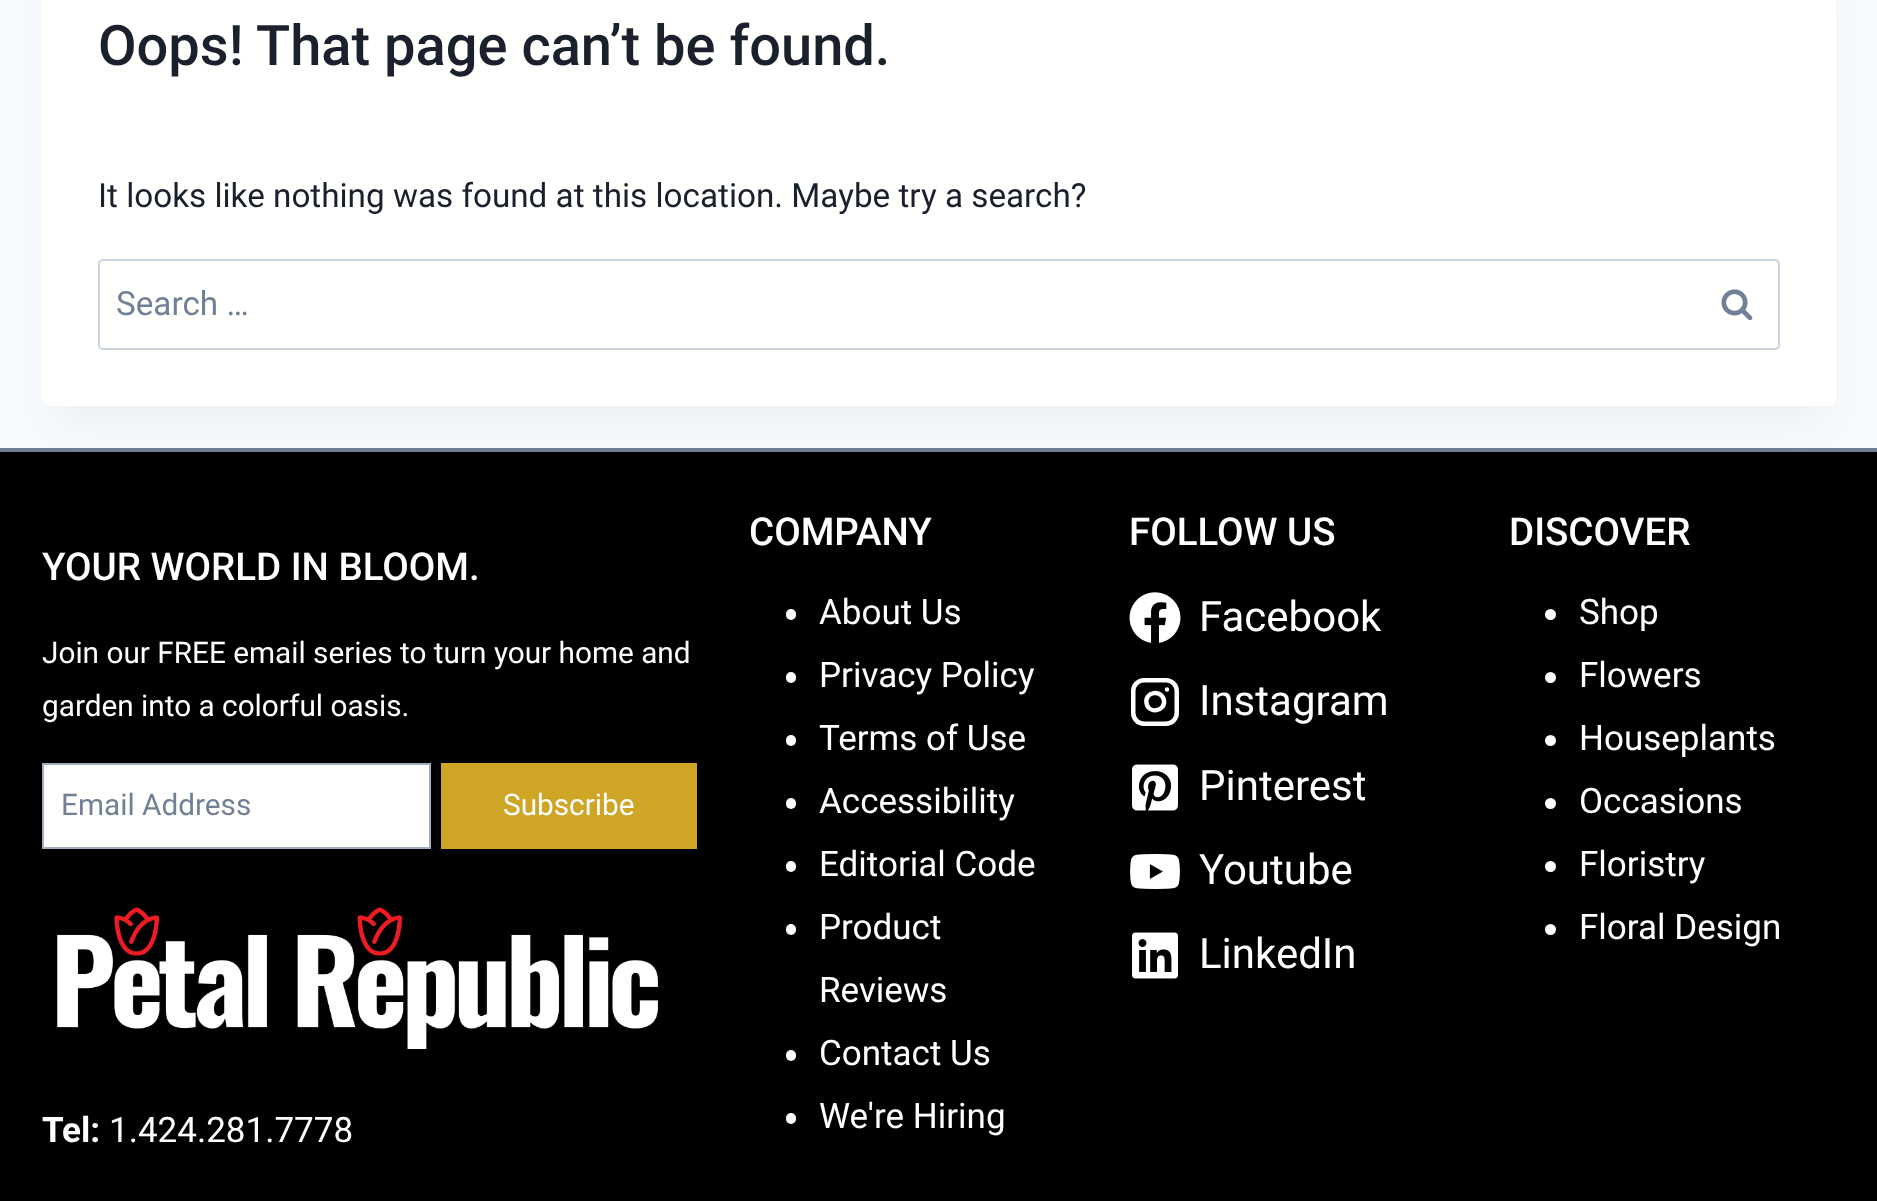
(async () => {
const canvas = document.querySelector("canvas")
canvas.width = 1877
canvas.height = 1201
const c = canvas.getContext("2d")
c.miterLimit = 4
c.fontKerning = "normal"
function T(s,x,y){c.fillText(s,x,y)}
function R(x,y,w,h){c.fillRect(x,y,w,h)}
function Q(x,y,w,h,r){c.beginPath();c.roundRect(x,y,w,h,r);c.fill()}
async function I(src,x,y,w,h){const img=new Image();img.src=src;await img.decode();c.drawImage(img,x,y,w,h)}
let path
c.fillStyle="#f7fafc"
R(0,0,1877,1201)
c.fillStyle="#000"
R(0,452,1877,749)
c.fillStyle="#718096"
R(0,448,1877,4)
c.fillStyle="#0000000d"
c.filter="blur(22px)"
c.beginPath()
c.rect(60,-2,1758,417)
c.fill()
c.filter="none"
c.fillStyle="#fffffe"
Q(42,-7,1794,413,7)
c.font="500 56px Roboto"
c.fillStyle="#1a202c"
T("Oops! That page can’t be found.",98,65)
c.font="33.25px Roboto"
T("It looks like nothing was found at this location. Maybe try a search?",98,207)
c.beginPath()
c.roundRect(99,260,1680,89,4)
c.strokeStyle="#cbd5e0"
c.lineWidth=2
c.stroke()
c.fillStyle="#718096"
T("Search …",116,315)
await I("1.png",1721,289,32,31)
c.font="500 38.5px Roboto"
c.fillStyle="#fffffe"
T("YOUR WORLD IN BLOOM.",42,580)
c.font="29.75px Roboto"
T("Join our FREE email series to turn your home and",42,663)
T("garden into a colorful oasis.",42,716)
c.beginPath()
c.rect(43,764,387,84)
c.fill()
c.strokeStyle="#a0aec0"
c.stroke()
c.fillStyle="#718096"
T("Email Address",61,815)
c.fillStyle="#cea525"
R(441,763,256,86)
c.fillStyle="#fffffe"
T("Subscribe",503,815)
await I("2.png",57,907,601,143)
c.font="bold 35px Roboto"
T("Tel:",42,1142)
c.font="35px Roboto"
T("1.424.281.7778",109,1142)
c.font="500 38.5px Roboto"
T("COMPANY",749,545)
Q(786,609,10,11,5)
c.font="35px Roboto"
T("About Us",819,624)
Q(786,672,10,11,5)
T("Privacy Policy",819,687)
Q(786,735,10,11,5)
T("Terms of Use",819,750)
Q(786,798,10,11,5)
T("Accessibility",819,813)
Q(786,861,10,11,5)
T("Editorial Code",819,876)
Q(786,924,10,11,5)
T("Product",819,939)
T("Reviews",819,1002)
Q(786,1050,10,11,5)
T("Contact Us",819,1065)
Q(786,1113,10,11,5)
T("We're Hiring",819,1128)
c.font="500 38.5px Roboto"
T("FOLLOW US",1129,545)
await I("3.png",1129,592,52,51)
c.font="42px Roboto"
T("Facebook",1199,631)
c.beginPath()
c.roundRect(1133.25,680.25,43.5,43.5,10.75)
c.strokeStyle="#fffffe"
c.lineWidth=4.5
c.stroke()
path = new Path2D("M1164 700.5c1.5 11-15.5 14-17.5 2.5c-2-11.5 15.5-14 17.5-2.5zm3-11h0")
c.lineWidth=4.4
c.lineCap="round"
c.lineJoin="round"
c.stroke(path)
T("Instagram",1199,715)
await I("4.png",1132,764,46,47)
T("Pinterest",1199,800)
await I("5.png",1130,854,50,35)
T("Youtube",1199,884)
await I("6.png",1132,932,46,47)
T("LinkedIn",1199,968)
c.font="500 38.5px Roboto"
T("DISCOVER",1509,545)
c.beginPath()
c.arc(1550.5,614.5,5.5,0,7)
c.fill()
c.font="35px Roboto"
T("Shop",1579,624)
c.beginPath()
c.arc(1550.5,677.5,5.5,0,7)
c.fill()
T("Flowers",1579,687)
c.beginPath()
c.arc(1550.5,740.5,5.5,0,7)
c.fill()
T("Houseplants",1579,750)
c.beginPath()
c.arc(1550.5,803.5,5.5,0,7)
c.fill()
T("Occasions",1579,813)
c.beginPath()
c.arc(1550.5,866.5,5.5,0,7)
c.fill()
T("Floristry",1579,876)
c.beginPath()
c.arc(1550.5,929.5,5.5,0,7)
c.fill()
T("Floral Design",1579,939)
})()
